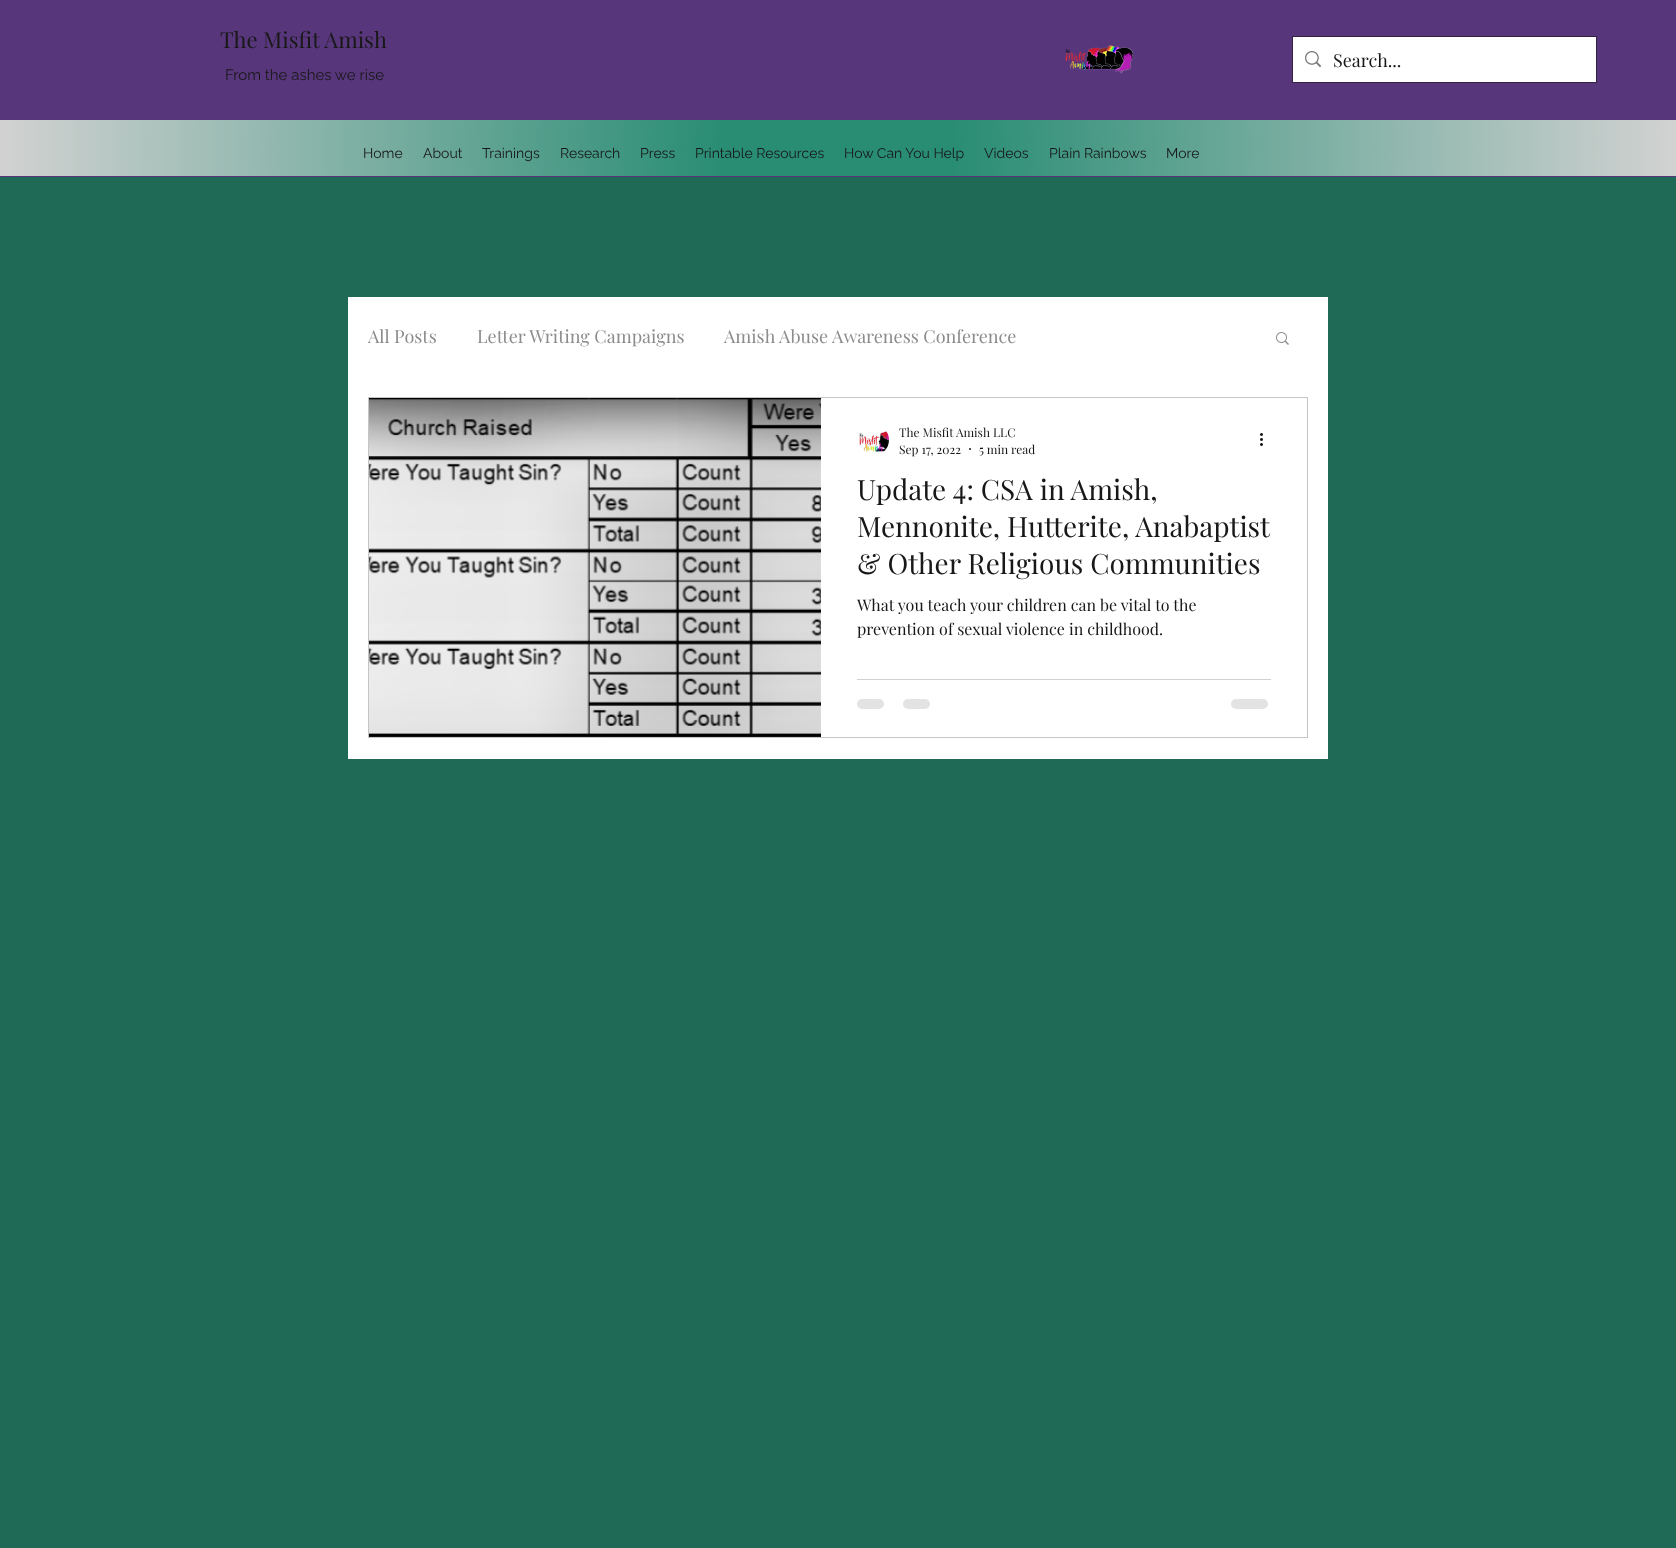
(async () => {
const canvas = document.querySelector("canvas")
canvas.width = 1676
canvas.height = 1548
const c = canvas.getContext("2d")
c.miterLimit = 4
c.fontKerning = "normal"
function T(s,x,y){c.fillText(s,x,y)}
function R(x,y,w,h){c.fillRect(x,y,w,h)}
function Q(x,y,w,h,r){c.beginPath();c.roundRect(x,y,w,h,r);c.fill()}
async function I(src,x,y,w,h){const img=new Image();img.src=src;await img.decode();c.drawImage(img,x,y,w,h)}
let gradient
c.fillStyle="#1f6a57"
R(0,0,1676,1548)
c.fillStyle="#58367c"
R(0,0,1676,177)
c.font="22px Playfair Display"
c.fillStyle="#181818"
T("The Misfit Amish",220,48)
c.font="15px Raleway"
T("From the ashes we rise",225,80)
await I("1.png",1065,45,69,29)
c.strokeStyle="#322440"
c.strokeRect(1292.5,36.5,304,46)
c.fillStyle="#fff"
R(1293,37,303,45)
await I("2.png",1305,51,16,17)
c.font="18px Playfair Display"
c.fillStyle="#181818"
T("Search...",1333,67)
gradient = c.createRadialGradient(838,148,0,838,148,838)
gradient.addColorStop(.14,"#298d74")
gradient.addColorStop(1,"#d2d2d2")
c.fillStyle = gradient
R(0,120,1676,56)
c.font="14px Raleway"
c.fillStyle="#181818"
T("Home",363,158)
T("About",423,158)
T("Trainings",482,158)
T("Research",560,158)
T("Press",640,158)
T("Printable Resources",695,158)
T("How Can You Help",844,158)
T("Videos",984,158)
T("Plain Rainbows",1049,158)
T("More",1166,158)
c.fillStyle="#fff"
R(348,297,980,462)
c.font="18px Playfair Display"
c.fillStyle="#8c8c8c"
T("All Posts",368,343)
T("Letter Writing Campaigns",477,343)
T("Amish Abuse Awareness Conference",724,343)
await I("3.png",1276,332,13,13)
c.strokeStyle="#c5c5c5"
c.strokeRect(368.5,397.5,939,340)
await I("5.png",369,399,452,338)
await I("4.png",369,398,452,339)
await I("6.png",859,431,30,22)
c.font="12px Playfair Display"
c.fillStyle="#181818"
T("The Misfit Amish LLC",899,437)
T("Sep 17, 2022",899,454)
c.beginPath()
c.arc(970,449,1,0,7)
c.fill()
T("5 min read",979,454)
await I("7.png",1260,433,3,13)
c.font="28px Playfair Display"
T("Update 4: CSA in Amish,",857,500)
T("Mennonite, Hutterite, Anabaptist",857,537)
T("& Other Religious Communities",857,574)
c.font="16px Playfair Display"
T("What you teach your children can be vital to the",857,611)
T("prevention of sexual violence in childhood.",857,635)
c.fillStyle="#d1d1d1"
R(857,679,414,1)
c.fillStyle="#e3e3e3"
Q(857,699,27,10,5)
Q(903,699,27,10,5)
Q(1231,699,37,10,5)
})()
